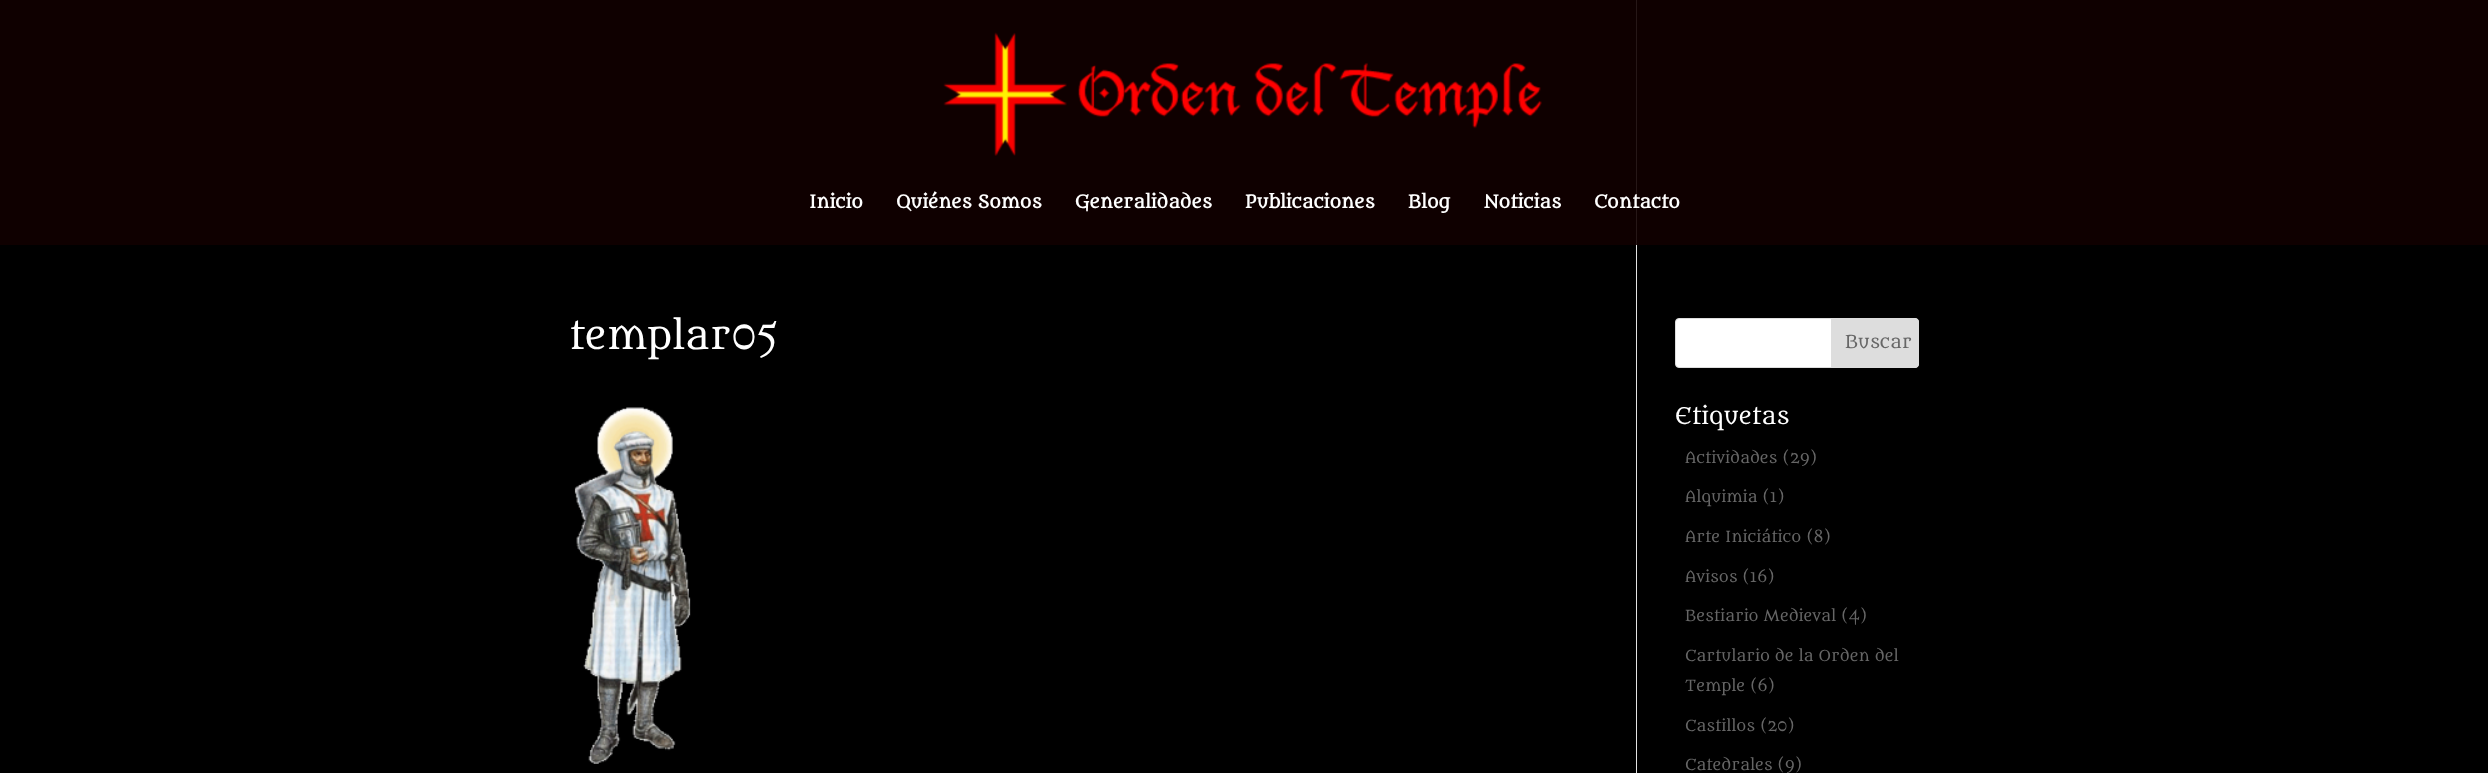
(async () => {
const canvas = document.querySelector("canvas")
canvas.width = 2488
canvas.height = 773
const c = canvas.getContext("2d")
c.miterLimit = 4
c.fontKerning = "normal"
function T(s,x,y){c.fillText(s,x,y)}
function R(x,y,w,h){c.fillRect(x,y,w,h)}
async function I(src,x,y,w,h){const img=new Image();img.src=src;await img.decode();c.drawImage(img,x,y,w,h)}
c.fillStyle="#000"
R(0,0,2488,773)
c.fillStyle="#0f0000"
R(0,0,2488,245)
await I("1.png",943,32,599,124)
c.font="bold 17.5px Metamorphous"
c.fillStyle="#fff"
T("Inicio",809,208)
T("Quiénes Somos",896,208)
T("Generalidades",1075,208)
T("Publicaciones",1245,208)
T("Blog",1408,208)
T("Noticias",1484,208)
c.fillStyle="#261717"
R(1636,0,1,245)
c.fillStyle="#fff"
T("Contacto",1594,208)
c.fillStyle="#e2e2e2"
R(1636,245,1,528)
c.font="37.5px Metamorphous"
c.fillStyle="#fff"
T("templar05",569,349)
await I("2.png",574,407,117,357)
c.beginPath()
c.roundRect(1675.5,318.5,243,49,3.5)
c.fill()
c.strokeStyle="#ddd"
c.stroke()
c.fillStyle="#ddd"
c.beginPath()
c.roundRect(1831.5,318.5,87,49,[0,3.5,3.5,0])
c.fill()
c.stroke()
c.font="17.5px Metamorphous"
c.fillStyle="#666"
T("Buscar",1845,348)
c.font="22.5px Metamorphous"
c.fillStyle="#fff"
T("Etiquetas",1675,424)
c.font="15px Metamorphous"
c.fillStyle="#666"
T("Actividades (29)",1685,463)
T("Alquimia (1)",1685,502)
T("Arte Iniciático (8)",1685,542)
T("Avisos (16)",1685,582)
T("Bestiario Medieval (4)",1685,621)
T("Cartulario de la Orden del",1685,661)
T("Temple (6)",1685,691)
T("Castillos (20)",1685,731)
T("Catedrales (9)",1685,770)
})()
